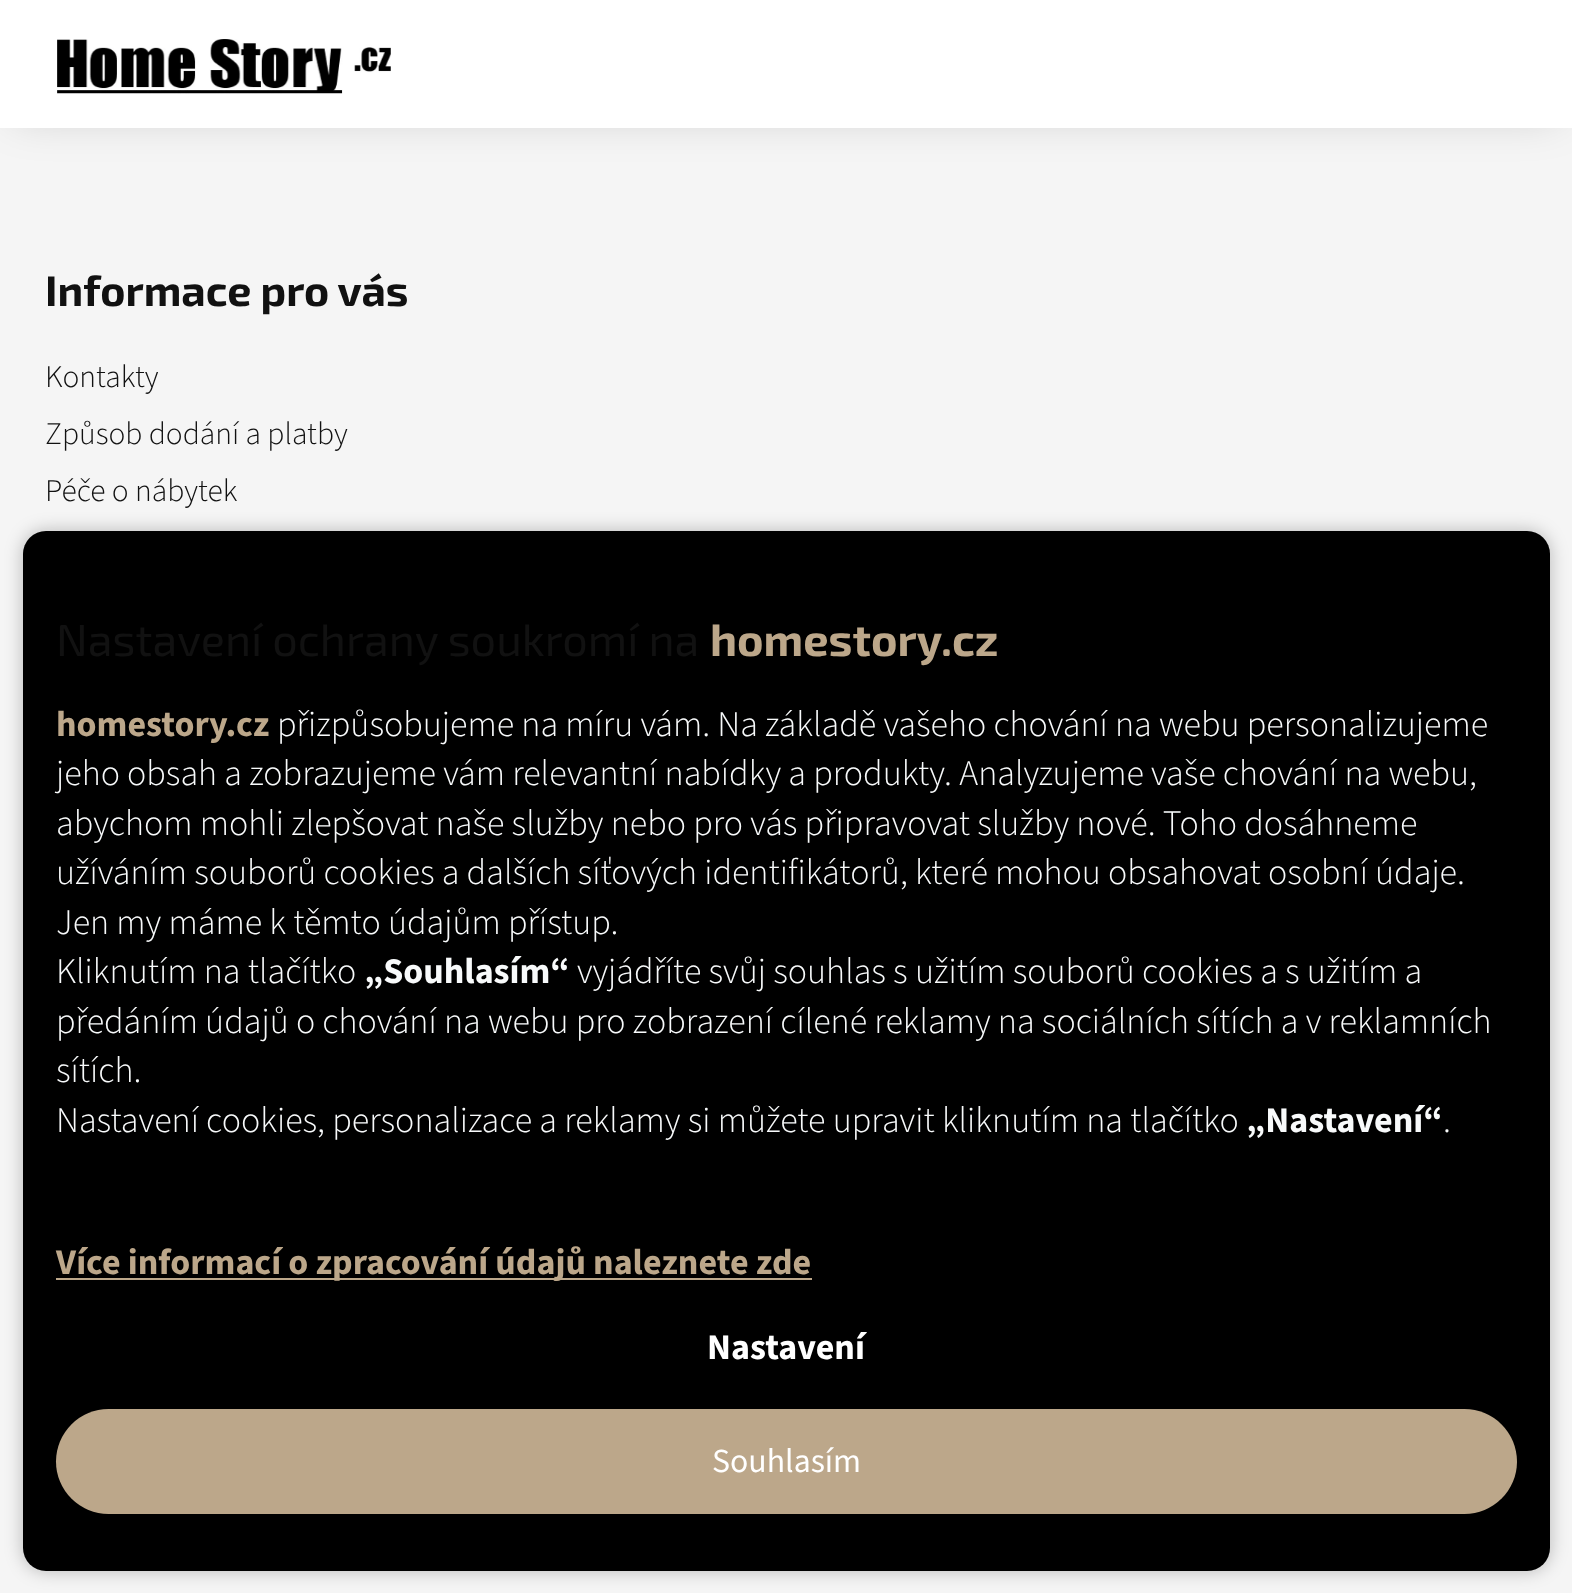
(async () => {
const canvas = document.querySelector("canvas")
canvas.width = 1572
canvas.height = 1593
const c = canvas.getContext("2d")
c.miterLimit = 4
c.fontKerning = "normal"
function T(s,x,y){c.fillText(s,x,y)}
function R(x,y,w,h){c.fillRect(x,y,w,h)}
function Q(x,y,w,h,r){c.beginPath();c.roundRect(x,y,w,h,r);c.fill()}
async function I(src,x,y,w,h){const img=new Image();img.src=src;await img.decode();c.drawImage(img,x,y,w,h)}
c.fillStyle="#f5f5f5"
R(0,0,1572,1593)
c.fillStyle="#00000030"
c.filter="blur(22.5px)"
c.beginPath()
c.rect(14,14,1545,101)
c.fill()
c.filter="none"
c.fillStyle="#fff"
R(0,0,1572,128)
await I("1.png",57,39,334,55)
c.font="bold 42.75px 'Exo 2'"
c.fillStyle="#111"
T("Informace pro vás",45,306)
c.font="300 31.5px 'Source Sans 3'"
T("Kontakty",45,387)
T("Způsob dodání a platby",45,444)
T("Péče o nábytek",45,501)
c.fillStyle="#00000040"
c.filter="blur(9px)"
c.beginPath()
c.roundRect(23,531,1527,1040,23)
c.fill()
c.filter="none"
c.fillStyle="#000"
Q(23,531,1527,1040,23)
c.font="45px 'Exo 2'"
c.fillStyle="#111"
T("Nastavení ochrany soukromí na",56,656)
c.font="bold 45px 'Exo 2'"
c.fillStyle="#bca78a"
T("homestory.cz",710,656)
c.font="bold 36px 'Source Sans 3'"
T("homestory.cz",56,736)
c.font="300 36px 'Source Sans 3'"
c.fillStyle="#f8fafb"
T("přizpůsobujeme na míru vám. Na základě vašeho chování na webu personalizujeme",277,736)
T("jeho obsah a zobrazujeme vám relevantní nabídky a produkty. Analyzujeme vaše chování na webu,",56,785)
T("abychom mohli zlepšovat naše služby nebo pro vás připravovat služby nové. Toho dosáhneme",56,835)
T("užíváním souborů cookies a dalších síťových identifikátorů, které mohou obsahovat osobní údaje.",56,884)
T("Jen my máme k těmto údajům přístup.",56,934)
T("Kliknutím na tlačítko",56,983)
c.font="bold 36px 'Source Sans 3'"
T("„Souhlasím“",364,983)
c.font="300 36px 'Source Sans 3'"
T("vyjádříte svůj souhlas s užitím souborů cookies a s užitím a",577,983)
T("předáním údajů o chování na webu pro zobrazení cílené reklamy na sociálních sítích a v reklamních",56,1033)
T("sítích.",56,1082)
T("Nastavení cookies, personalizace a reklamy si můžete upravit kliknutím na tlačítko",56,1132)
c.font="bold 36px 'Source Sans 3'"
T("„Nastavení“",1246,1132)
c.font="300 36px 'Source Sans 3'"
T(".",1443,1132)
c.fillStyle="#bca78a"
R(56,1278,756,2)
c.font="bold 36px 'Source Sans 3'"
T("Více informací o zpracování údajů naleznete zde",56,1274)
c.fillStyle="#fff"
T("Nastavení",707,1359)
c.fillStyle="#bca78a"
Q(56,1409,1461,105,52.5)
c.font="33.75px 'Source Sans 3'"
c.fillStyle="#fff"
T("Souhlasím",712,1472)
})()
